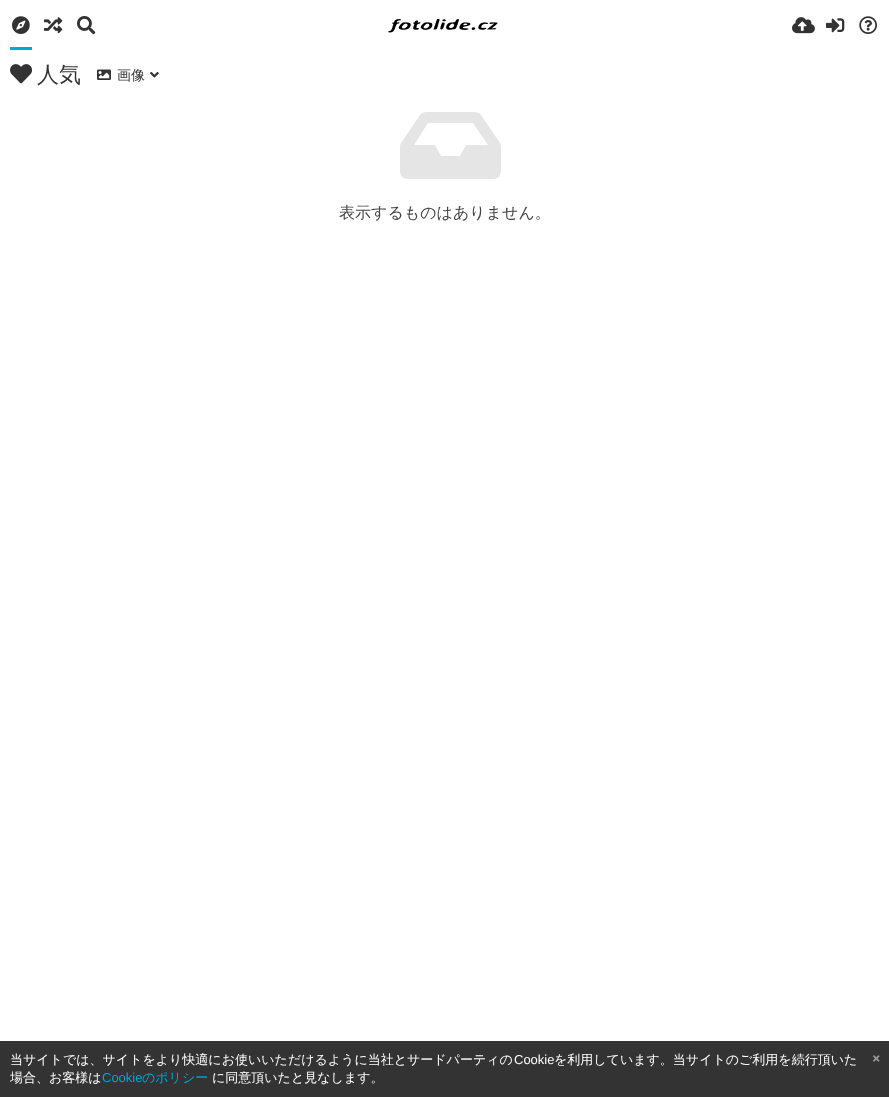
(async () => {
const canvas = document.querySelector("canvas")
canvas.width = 889
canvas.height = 1097
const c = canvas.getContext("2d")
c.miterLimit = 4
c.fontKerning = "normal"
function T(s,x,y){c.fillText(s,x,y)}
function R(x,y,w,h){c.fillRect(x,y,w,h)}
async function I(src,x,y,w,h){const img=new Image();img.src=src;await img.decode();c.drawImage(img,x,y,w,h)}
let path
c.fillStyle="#fff"
R(0,0,889,1097)
c.fillStyle="#00a7da"
R(10,47,22,3)
await I("1.png",12,16,18,18)
await I("2.png",44,17,19,17)
await I("3.png",77,16,19,19)
await I("4.png",388,19,110,14)
await I("5.png",792,17,23,17)
await I("6.png",826,18,19,15)
await I("7.png",859,16,18,18)
await I("8.png",10,64,22,20)
c.font="500 22px WenQuanYi Zen Hei"
c.fillStyle="#333"
T("人気",37,82)
await I("9.png",97,69,14,11)
c.font="500 14px WenQuanYi Zen Hei"
T("画像",117,80)
await I("10.png",150,72,9,6)
c.fillStyle="#e5e5e5"
path = new Path2D("M500 143c1 2 1 3 1 5v23c0 2-1 4-2 6c-2 1-4 2-6 2h-85c-2 0-4-1-6-2c-1-2-2-4-2-6v-23c0-2 0-3 1-5l19-28c2-2 4-3 7-3h47c3 0 6 1 7 3zm-72-20l-14 22h21l6 11h19l6-11h22l-15-22z")
c.fill(path)
c.font="500 16px WenQuanYi Zen Hei"
c.fillStyle="#444"
T("表示するものはありません。",339,218)
c.fillStyle="#333"
R(0,1041,889,56)
c.font="500 13px WenQuanYi Zen Hei"
c.fillStyle="#fff"
T("当サイトでは、サイトをより快適にお使いいただけるように当社とサードパーティの",10,1064)
c.font="13px Liberation Sans"
T("Cookie",514,1064)
c.font="500 13px WenQuanYi Zen Hei"
T("を利用しています。当サイトのご利用を続行頂いた",554,1064)
T("場合、お客様は",10,1082)
c.font="13px Liberation Sans"
c.fillStyle="#00a7da"
T("Cookie",102,1082)
c.font="500 13px WenQuanYi Zen Hei"
T("のポリシー",142,1082)
c.fillStyle="#fff"
T("に同意頂いたと見なします。",212,1082)
await I("11.png",873,1055,7,7)
})()
